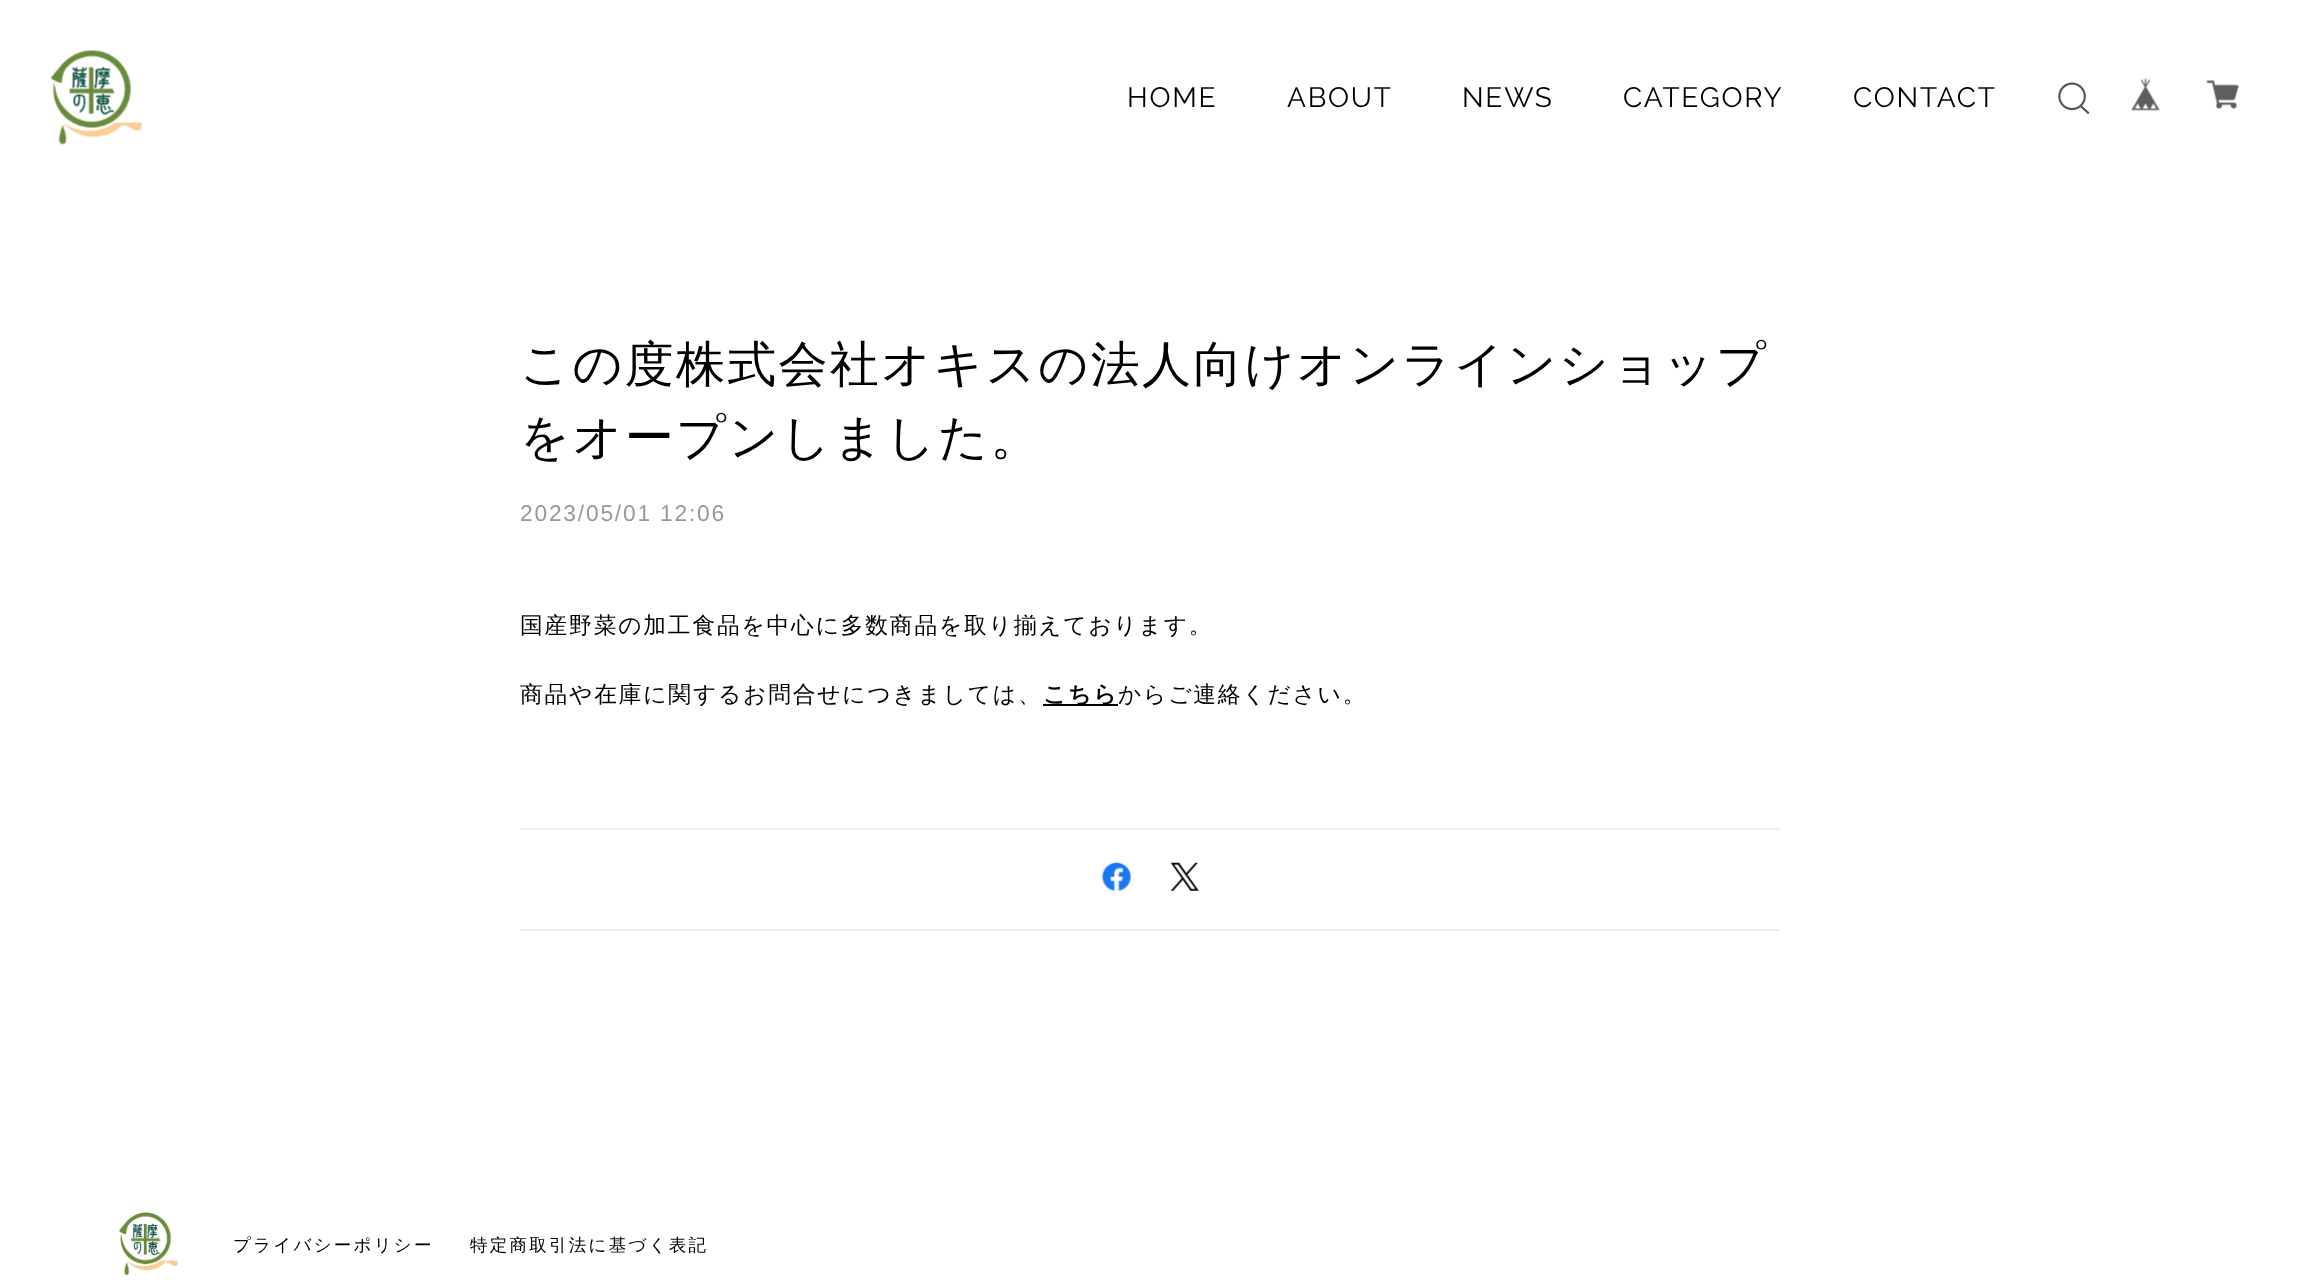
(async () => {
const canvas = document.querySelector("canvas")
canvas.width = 2299
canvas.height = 1285
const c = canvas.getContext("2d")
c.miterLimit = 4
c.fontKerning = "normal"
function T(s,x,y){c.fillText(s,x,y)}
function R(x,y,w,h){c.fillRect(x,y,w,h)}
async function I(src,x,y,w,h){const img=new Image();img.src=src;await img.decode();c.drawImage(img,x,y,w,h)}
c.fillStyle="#fff"
R(0,0,2299,1285)
await I("1.png",50,50,93,95)
c.letterSpacing="1.75px"
c.font="28px Raleway"
c.fillStyle="#000"
T("HOME",1127,107)
T("ABOUT",1287,107)
T("NEWS",1462,107)
T("CATEGORY",1623,107)
T("CONTACT",1853,107)
await I("2.png",2058,82,32,32)
await I("3.png",2131,78,29,33)
await I("4.png",2206,80,33,29)
c.letterSpacing="2.25px"
c.font="500 49px WenQuanYi Zen Hei"
T("この度株式会社オキスの法人向けオンラインショップ",520,381)
T("をオープンしました。",520,454)
c.letterSpacing="1.8px"
c.font="22.75px Liberation Sans"
c.fillStyle="#999"
T("2023/05/01 12:06",520,521)
c.font="500 22.75px WenQuanYi Zen Hei"
c.fillStyle="#000"
T("国産野菜の加工食品を中心に多数商品を取り揃えております。",520,633)
T("商品や在庫に関するお問合せにつきましては、",520,702)
R(1043,704,75,2)
c.font="bold 22.75px WenQuanYi Zen Hei"
T("こちら",1043,702)
c.font="500 22.75px WenQuanYi Zen Hei"
T("からご連絡ください。",1118,702)
c.fillStyle="#eee"
R(520,828,1260,2)
R(520,929,1260,2)
await I("5.png",1101,862,30,29)
await I("6.png",1170,862,29,29)
await I("7.png",118,1212,61,64)
c.letterSpacing="2.25px"
c.font="500 17.5px WenQuanYi Zen Hei"
c.fillStyle="#000"
T("プライバシーポリシー",233,1251)
T("特定商取引法に基づく表記",470,1251)
})()
